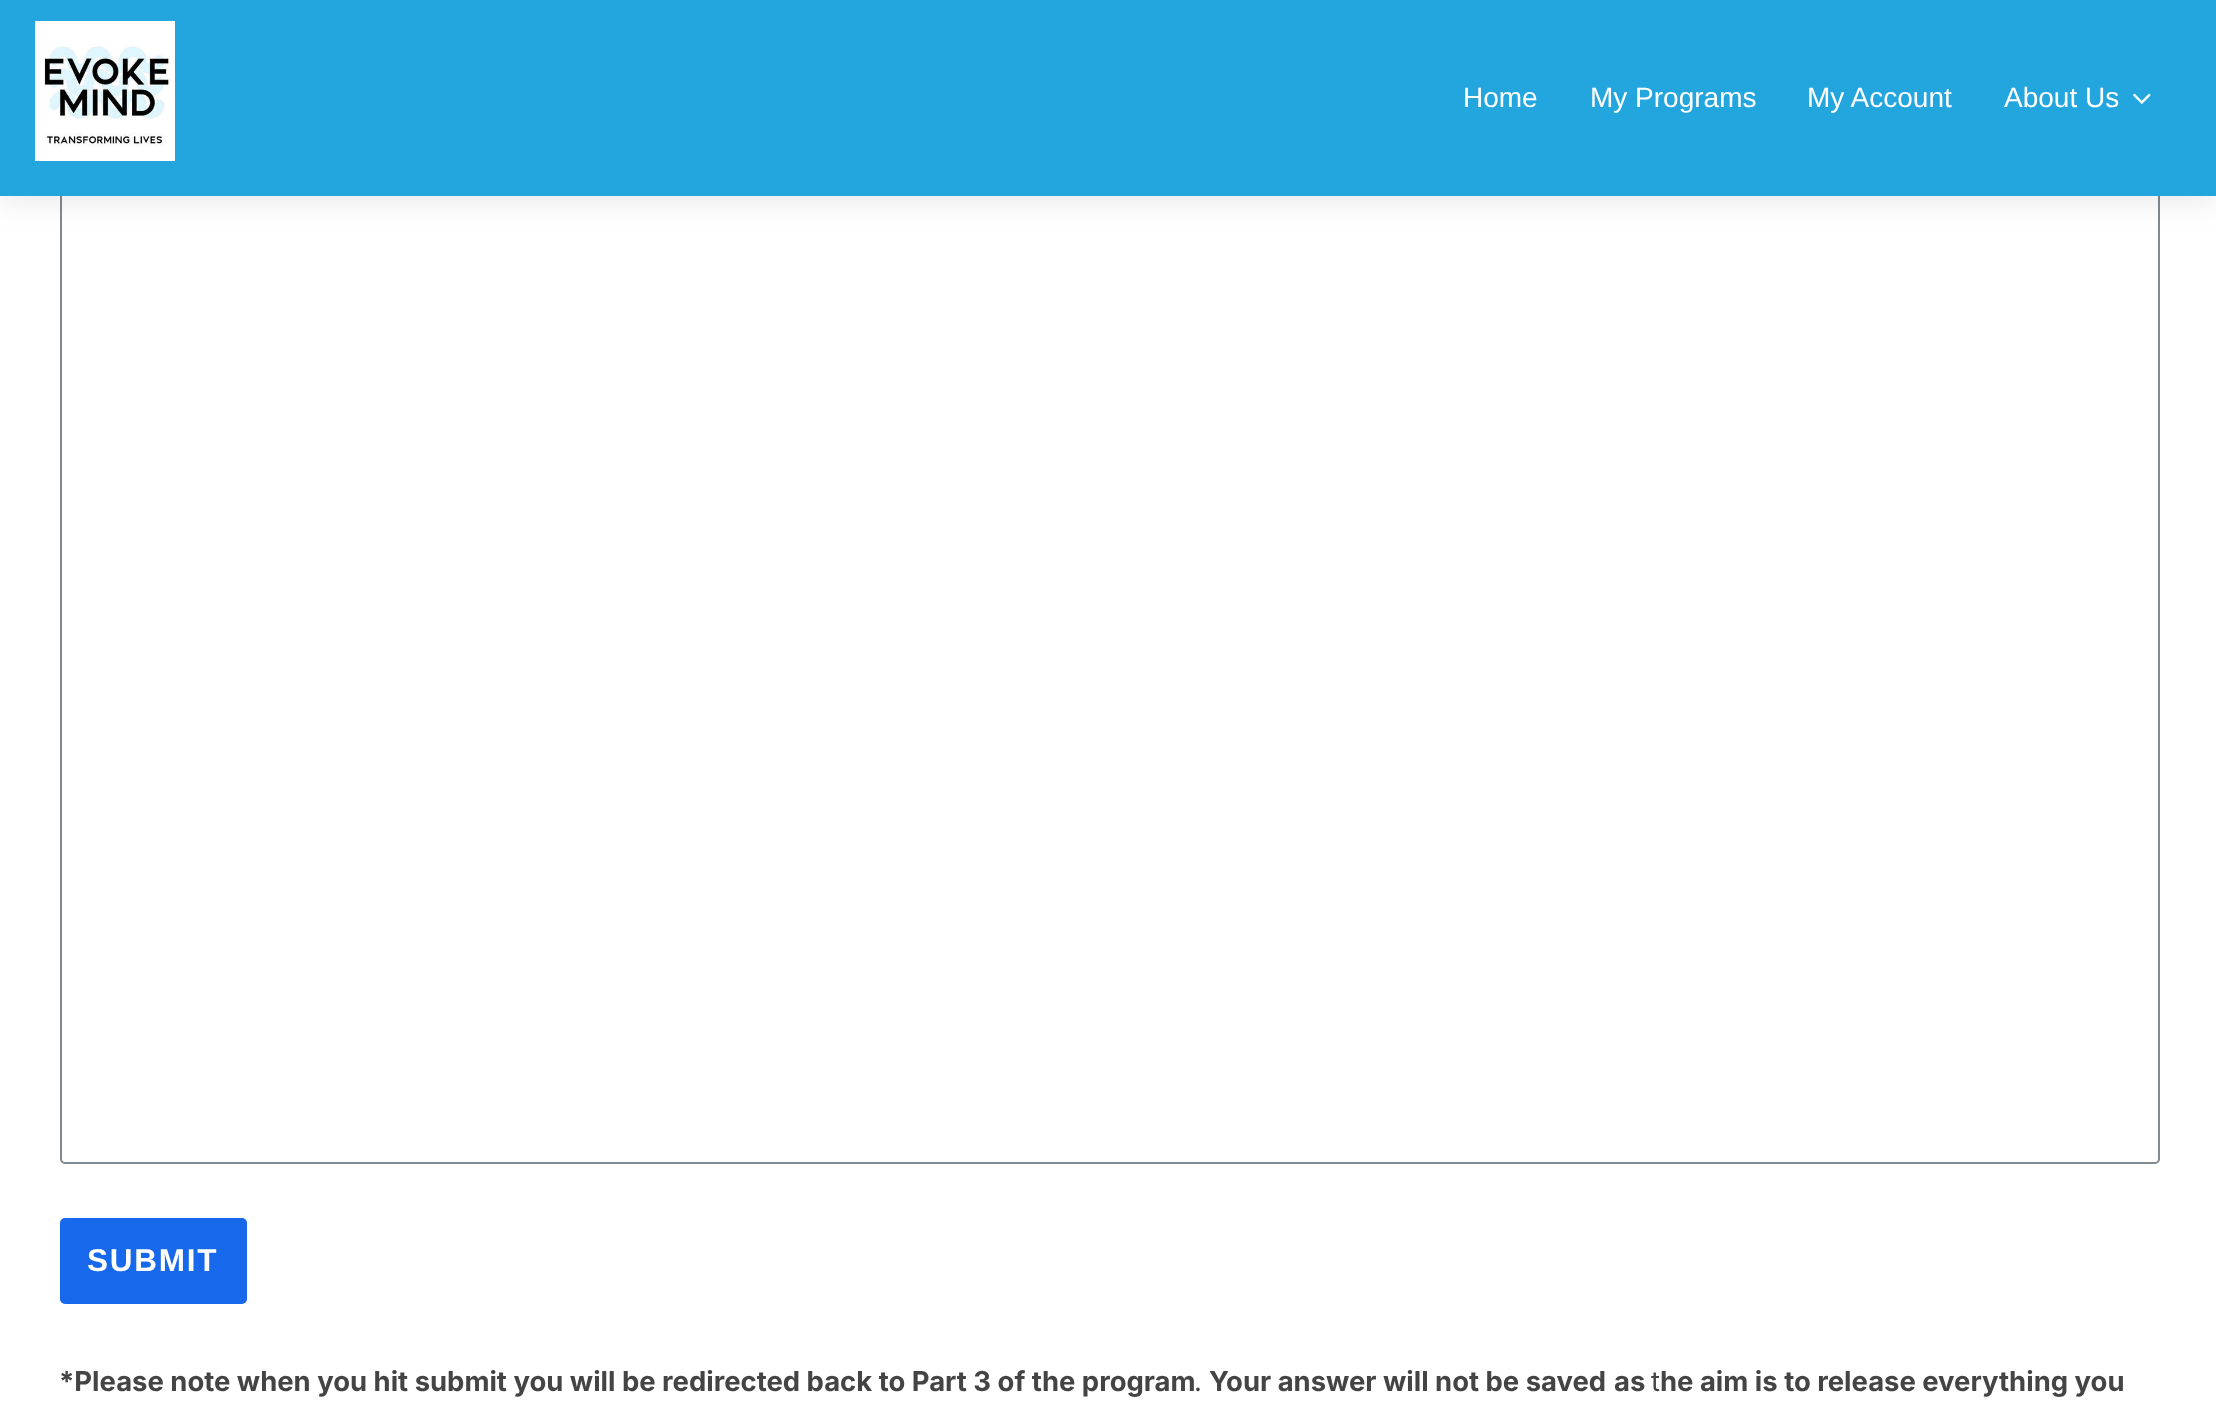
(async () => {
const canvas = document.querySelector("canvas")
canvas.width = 2216
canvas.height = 1402
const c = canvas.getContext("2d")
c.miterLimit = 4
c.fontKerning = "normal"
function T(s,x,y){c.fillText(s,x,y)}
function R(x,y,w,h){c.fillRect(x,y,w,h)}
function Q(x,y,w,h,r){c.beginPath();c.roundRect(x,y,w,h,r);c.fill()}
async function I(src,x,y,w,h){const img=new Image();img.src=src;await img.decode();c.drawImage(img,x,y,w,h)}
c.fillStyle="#fff"
R(0,0,2216,1402)
c.beginPath()
c.roundRect(61,120,2098,1043,4)
c.strokeStyle="#818a91"
c.lineWidth=2
c.stroke()
c.fillStyle="#0000001a"
c.filter="blur(16px)"
c.beginPath()
c.rect(-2,-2,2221,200)
c.fill()
c.filter="none"
c.fillStyle="#23a5dd"
R(0,0,2216,196)
await I("1.png",35,21,140,140)
c.font="28px Liberation Sans"
c.fillStyle="#fff"
T("Home",1463,107)
T("My Programs",1590,107)
T("My Account",1807,107)
T("About Us",2004,107)
await I("2.png",2133,93,18,11)
c.fillStyle="#1768ea"
Q(60,1218,187,86,5)
c.letterSpacing="1.75px"
c.font="bold 31.5px Liberation Sans"
c.fillStyle="#fff"
T("SUBMIT",87,1271)
c.letterSpacing="0px"
c.font="bold 27.45px Inter"
c.fillStyle="#444"
T("*Please note when you hit submit you will be redirected back to Part 3 of the program",59,1391)
c.font="27.45px Inter"
T(".",1194,1391)
c.font="bold 27.45px Inter"
T("Your answer will not be saved",1209,1391)
T("as",1614,1391)
c.font="27.45px Inter"
T("t",1651,1391)
c.font="bold 27.45px Inter"
T("he aim is to release everything you",1660,1391)
})()
